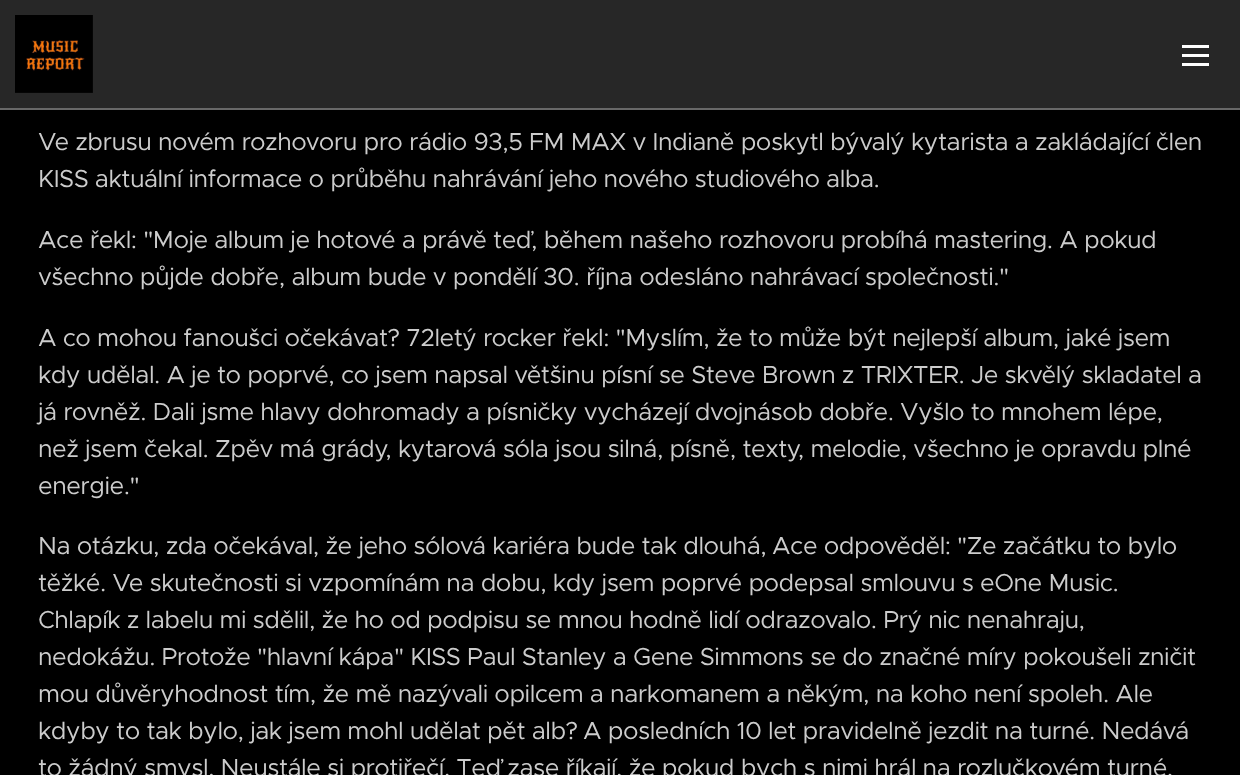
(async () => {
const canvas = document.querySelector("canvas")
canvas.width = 1240
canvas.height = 775
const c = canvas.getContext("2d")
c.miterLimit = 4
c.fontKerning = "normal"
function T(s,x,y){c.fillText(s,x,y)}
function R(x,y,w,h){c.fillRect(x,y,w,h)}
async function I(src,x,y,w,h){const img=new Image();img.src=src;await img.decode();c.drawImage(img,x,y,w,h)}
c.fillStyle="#000"
R(0,0,1240,775)
c.fillStyle="#272727"
R(0,0,1240,108)
c.fillStyle="#686868"
R(0,108,1240,2)
await I("1.png",15,15,78,78)
c.fillStyle="#fff"
R(1182,54,27,3)
R(1182,45,27,3)
R(1182,63,27,3)
c.letterSpacing="-0.49px"
c.font="24.6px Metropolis"
c.fillStyle="#ccc"
T("Ve zbrusu novém rozhovoru pro rádio 93,5 FM MAX v Indianě poskytl bývalý kytarista a zakládající člen",38,150)
T("KISS aktuální informace o průběhu nahrávání jeho nového studiového alba.",38,187)
T("Ace řekl: \"Moje album je hotové a právě teď, během našeho rozhovoru probíhá mastering. A pokud",38,248)
T("všechno půjde dobře, album bude v pondělí 30. října odesláno nahrávací společnosti.\"",38,285)
T("A co mohou fanoušci očekávat? 72letý rocker řekl: \"Myslím, že to může být nejlepší album, jaké jsem",38,346)
T("kdy udělal. A je to poprvé, co jsem napsal většinu písní se Steve Brown z TRIXTER. Je skvělý skladatel a",38,383)
T("já rovněž. Dali jsme hlavy dohromady a písničky vycházejí dvojnásob dobře. Vyšlo to mnohem lépe,",38,420)
T("než jsem čekal. Zpěv má grády, kytarová sóla jsou silná, písně, texty, melodie, všechno je opravdu plné",38,457)
T("energie.\"",38,494)
T("Na otázku, zda očekával, že jeho sólová kariéra bude tak dlouhá,",38,554)
T("Ace odpověděl: \"Ze začátku to bylo",772,554)
T("těžké. Ve skutečnosti si vzpomínám na dobu, kdy jsem poprvé podepsal smlouvu s eOne Music.",38,591)
T("Chlapík z labelu mi sdělil, že ho od podpisu se mnou hodně lidí odrazovalo. Prý nic nenahraju,",38,628)
T("nedokážu. Protože \"hlavní kápa\" KISS Paul Stanley a Gene Simmons se do značné míry pokoušeli zničit",38,665)
T("mou důvěryhodnost tím, že mě nazývali opilcem a narkomanem a někým, na koho není spoleh. Ale",38,702)
T("kdyby to tak bylo, jak jsem mohl udělat pět alb?",38,739)
T("A posledních 10 let pravidelně jezdit na turné. Nedává",583,739)
T("to žádný smysl. Neustále si protiřečí. Teď zase říkají, že pokud bych s nimi hrál na rozlučkovém turné,",38,776)
})()
